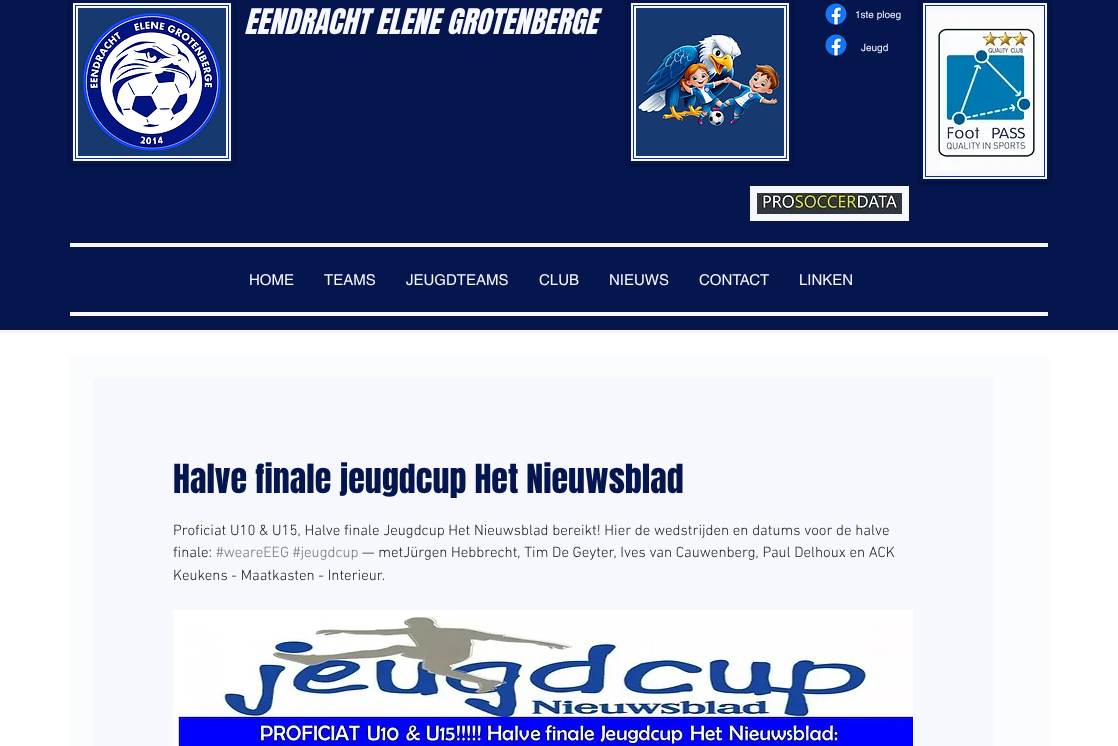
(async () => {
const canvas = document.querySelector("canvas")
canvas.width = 1118
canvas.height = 746
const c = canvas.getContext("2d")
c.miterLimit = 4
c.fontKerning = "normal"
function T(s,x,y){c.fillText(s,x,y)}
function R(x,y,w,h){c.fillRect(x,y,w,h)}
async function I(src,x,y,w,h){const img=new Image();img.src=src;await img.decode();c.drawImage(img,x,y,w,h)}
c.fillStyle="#fff"
R(0,0,1118,746)
c.fillStyle="#05154d"
R(0,0,1118,330)
c.fillStyle="#f7f8fd"
R(0,330,1118,3)
c.fillStyle="#00000080"
c.filter="blur(1.5px)"
c.beginPath()
c.rect(70,1,164,164)
c.fill()
c.filter="none"
c.fillStyle="#f7f8fd"
c.beginPath()
c.rect(71.5,1.5,161,161)
c.fill()
c.strokeStyle="#05154d"
c.lineWidth=3
c.stroke()
await I("1.png",78,8,148,148)
c.strokeStyle="#0b2a9b"
c.lineWidth=1
c.strokeRect(75.5,5.5,153,153)
c.font="italic 30px Anton"
T("EENDRACHT ELENE GROTENBERGE",244,34)
c.fillStyle="#00000080"
c.filter="blur(1.5px)"
c.beginPath()
c.rect(628,1,164,164)
c.fill()
c.filter="none"
c.fillStyle="#f7f8fd"
c.beginPath()
c.rect(629.5,1.5,161,161)
c.fill()
c.strokeStyle="#05154d"
c.lineWidth=3
c.stroke()
await I("2.png",636,8,148,148)
c.strokeStyle="#0b2a9b"
c.lineWidth=1
c.strokeRect(633.5,5.5,153,153)
await I("3.png",825,3,22,22)
await I("3.png",825,34,22,22)
c.font="10px helvetica"
T("1ste ploeg",855,18)
c.fillStyle="#00000080"
c.filter="blur(1.5px)"
c.beginPath()
c.rect(920,1,130,182)
c.fill()
c.filter="none"
c.fillStyle="#f7f8fd"
c.beginPath()
c.rect(921.5,1.5,127,179)
c.fill()
c.strokeStyle="#05154d"
c.lineWidth=3
c.stroke()
await I("4.png",928,11,114,160)
c.strokeStyle="#0b2a9b"
c.lineWidth=1
c.strokeRect(925.5,5.5,119,171)
T("Jeugd",861,51)
R(750,186,159,35)
await I("5.png",757,193,145,21)
R(70,243,978,4)
c.font="15px helvetica"
T("HOME",249,285)
T("TEAMS",324,285)
T("JEUGDTEAMS",406,285)
T("CLUB",539,285)
T("NIEUWS",609,285)
T("CONTACT",699,285)
T("LINKEN",799,285)
R(70,312,978,4)
c.fillStyle="#fbfcfe"
R(69,355,980,391)
c.fillStyle="#f7f8fd"
R(93,378,900,368)
c.font="34px Anton"
c.fillStyle="#05154d"
T("Halve finale jeugdcup Het Nieuwsblad",173,493)
c.font="300 15px 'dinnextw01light'"
c.fillStyle="#181919"
T("Proficiat U10 & U15, Halve finale Jeugdcup Het Nieuwsblad bereikt! Hier de wedstrijden en datums voor de halve",173,535)
T("finale:",173,557)
c.fillStyle="#747575"
T("#weareEEG #jeugdcup",216,557)
c.fillStyle="#181919"
T("— metJürgen Hebbrecht, Tim De Geyter, Ives van Cauwenberg, Paul Delhoux en ACK",362,557)
T("Keukens - Maatkasten - Interieur.",173,580)
await I("6.png",173,610,740,136)
})()
